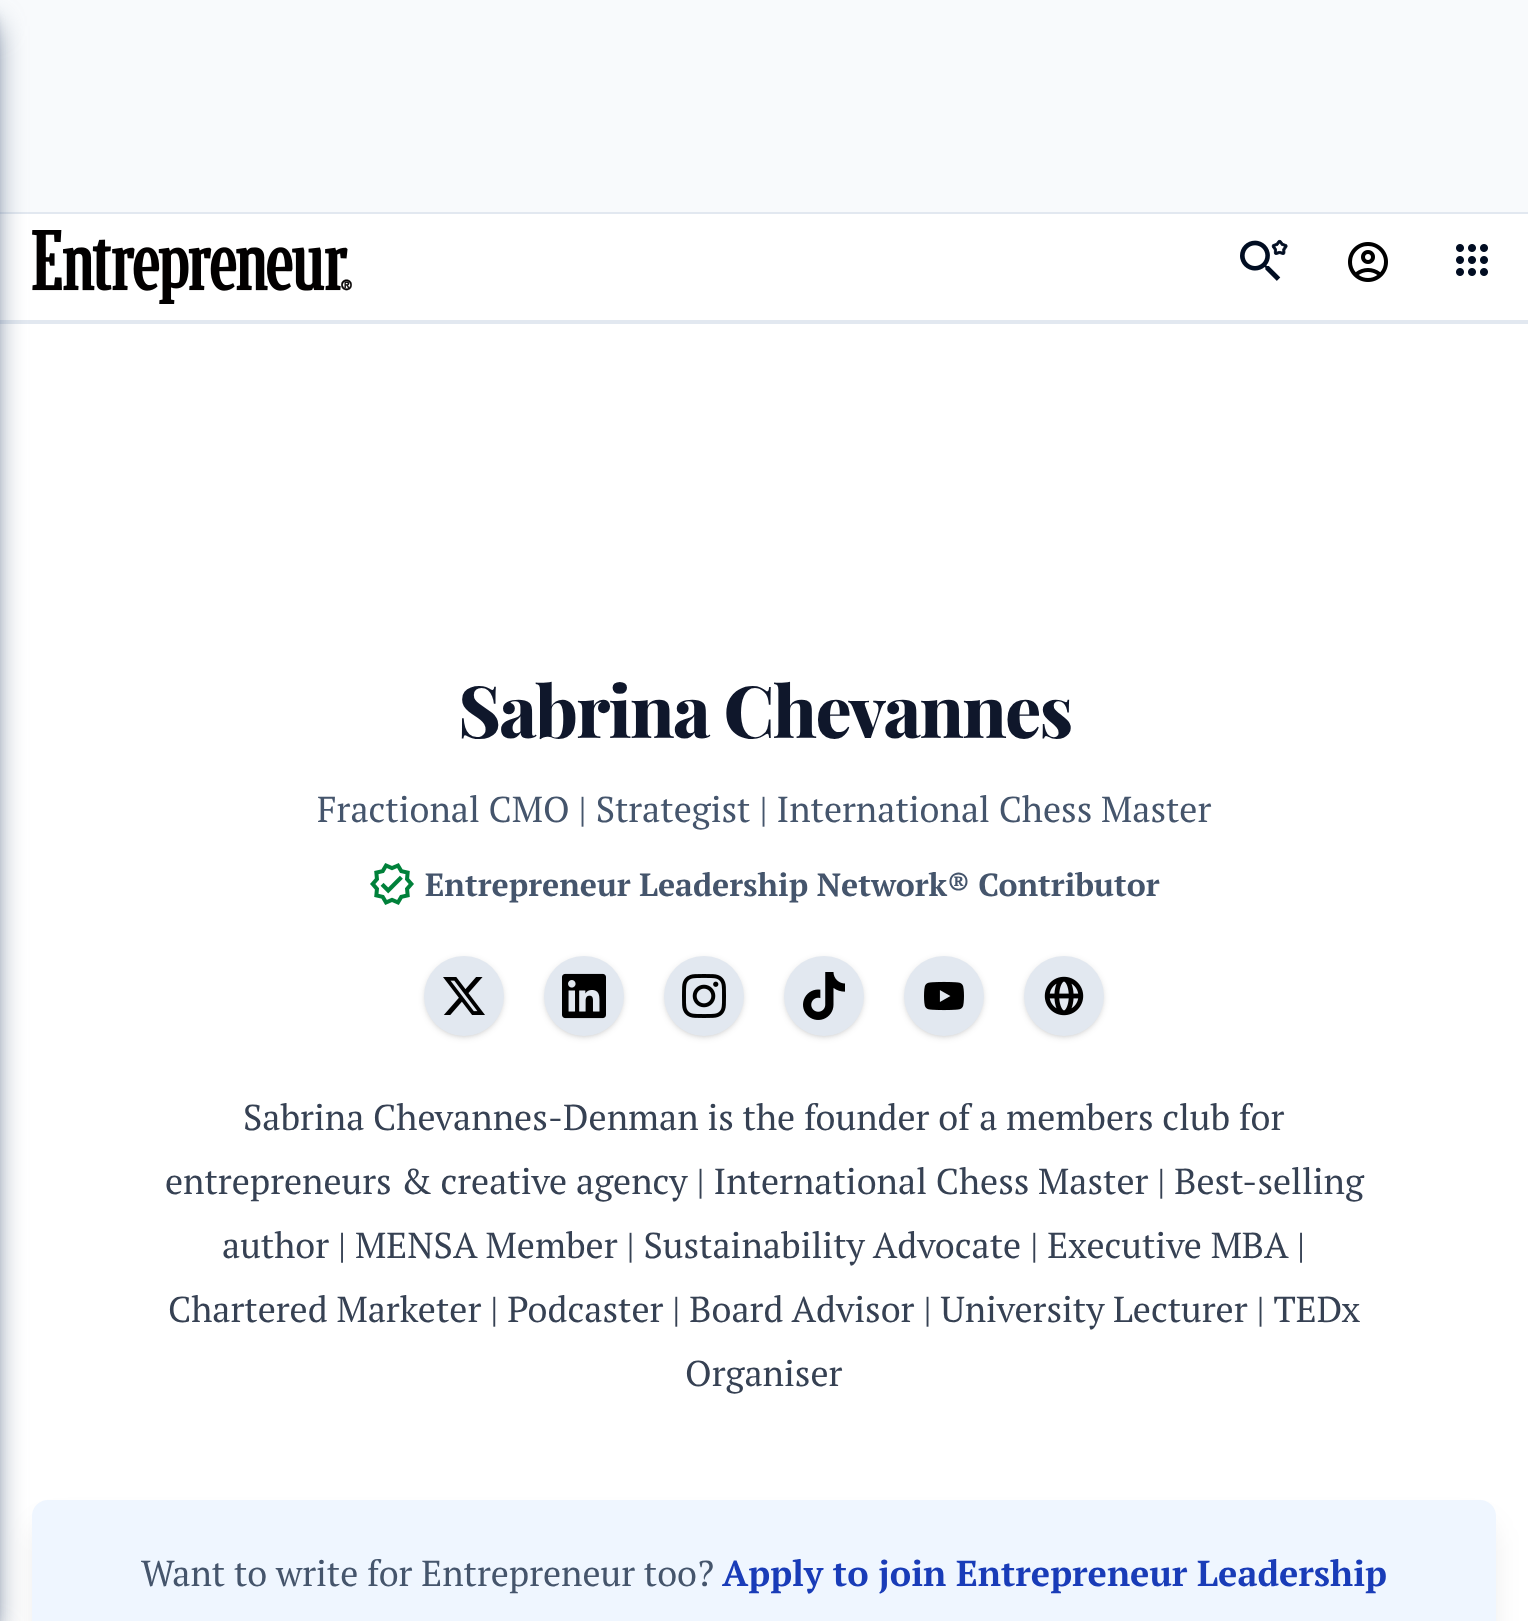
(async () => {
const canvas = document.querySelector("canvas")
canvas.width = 1528
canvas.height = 1621
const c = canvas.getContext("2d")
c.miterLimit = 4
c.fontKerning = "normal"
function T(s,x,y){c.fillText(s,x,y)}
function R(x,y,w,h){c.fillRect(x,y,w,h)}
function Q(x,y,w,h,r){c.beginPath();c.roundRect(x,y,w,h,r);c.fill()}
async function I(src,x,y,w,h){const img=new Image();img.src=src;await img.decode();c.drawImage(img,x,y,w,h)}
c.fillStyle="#fff"
R(0,0,1528,1621)
c.fillStyle="#f8fafc"
R(0,0,1528,212)
c.fillStyle="#e2e8f0"
R(0,212,1528,2)
R(0,320,1528,4)
await I("1.png",32,230,320,74)
await I("2.png",1240,239,48,42)
await I("3.png",1348,242,40,40)
await I("4.png",1456,244,32,32)
c.fillStyle="#62748e"
c.filter="blur(6px)"
c.beginPath()
c.rect(-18,16,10,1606)
c.fill()
c.filter="none"
c.fillStyle="#0000001a"
c.filter="blur(15px)"
c.beginPath()
c.roundRect(38,1526,1452,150,10)
c.fill()
c.filter="none"
c.fillStyle="#eff6ff"
Q(32,1500,1464,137,16)
c.fillStyle="#62748e"
c.filter="blur(15px)"
c.beginPath()
c.rect(-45,26,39,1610)
c.fill()
c.filter="none"
c.letterSpacing="-1.75px"
c.font="800 72px Playfair Display"
c.fillStyle="#0f172b"
T("Sabrina Chevannes",458,738)
c.letterSpacing="0px"
c.font="36px PT Serif"
c.fillStyle="#45556c"
T("Fractional CMO | Strategist | International Chess Master",317,822)
await I("5.png",370,863,44,42)
c.font="bold 32px PT Serif"
T("Entrepreneur Leadership Network® Contributor",425,896)
c.fillStyle="#0000001a"
c.filter="blur(2px)"
c.beginPath()
c.roundRect(426,960,76,76,38)
c.fill()
c.filter="none"
c.filter="blur(3px)"
c.beginPath()
c.roundRect(424,958,80,80,40)
c.fill()
c.filter="none"
c.fillStyle="#e2e8f0"
c.beginPath()
c.arc(464,996,40,0,7)
c.fill()
await I("6.png",443,977,42,38)
c.fillStyle="#0000001a"
c.filter="blur(2px)"
c.beginPath()
c.roundRect(546,960,76,76,38)
c.fill()
c.filter="none"
c.filter="blur(3px)"
c.beginPath()
c.roundRect(544,958,80,80,40)
c.fill()
c.filter="none"
c.fillStyle="#e2e8f0"
c.beginPath()
c.arc(584,996,40,0,7)
c.fill()
await I("7.png",562,973,44,46)
c.fillStyle="#0000001a"
c.filter="blur(2px)"
c.beginPath()
c.roundRect(666,960,76,76,38)
c.fill()
c.filter="none"
c.filter="blur(3px)"
c.beginPath()
c.roundRect(664,958,80,80,40)
c.fill()
c.filter="none"
c.fillStyle="#e2e8f0"
c.beginPath()
c.arc(704,996,40,0,7)
c.fill()
await I("8.png",682,974,44,44)
c.fillStyle="#0000001a"
c.filter="blur(2px)"
c.beginPath()
c.roundRect(786,960,76,76,38)
c.fill()
c.filter="none"
c.filter="blur(3px)"
c.beginPath()
c.roundRect(784,958,80,80,40)
c.fill()
c.filter="none"
c.fillStyle="#e2e8f0"
c.beginPath()
c.arc(824,996,40,0,7)
c.fill()
await I("9.png",803,972,42,48)
c.fillStyle="#0000001a"
c.filter="blur(2px)"
c.beginPath()
c.roundRect(906,960,76,76,38)
c.fill()
c.filter="none"
c.filter="blur(3px)"
c.beginPath()
c.roundRect(904,958,80,80,40)
c.fill()
c.filter="none"
c.fillStyle="#e2e8f0"
c.beginPath()
c.arc(944,996,40,0,7)
c.fill()
await I("10.png",924,981,40,30)
c.fillStyle="#0000001a"
c.filter="blur(2px)"
c.beginPath()
c.roundRect(1026,960,76,76,38)
c.fill()
c.filter="none"
c.filter="blur(3px)"
c.beginPath()
c.roundRect(1024,958,80,80,40)
c.fill()
c.filter="none"
c.fillStyle="#e2e8f0"
c.beginPath()
c.arc(1064,996,40,0,7)
c.fill()
await I("11.png",1044,976,40,40)
c.font="36px PT Serif"
c.fillStyle="#364153"
T("Sabrina Chevannes-Denman is the founder of a members club for",243,1130)
T("entrepreneurs & creative agency | International Chess Master | Best-selling",165,1194)
T("author | MENSA Member | Sustainability Advocate | Executive MBA |",222,1258)
T("Chartered Marketer | Podcaster | Board Advisor | University Lecturer | TEDx",168,1322)
T("Organiser",685,1386)
c.fillStyle="#45556c"
T("Want to write for Entrepreneur too?",141,1586)
c.font="bold 36px PT Serif"
c.fillStyle="#193cb8"
T("Apply to join Entrepreneur Leadership",722,1586)
})()
